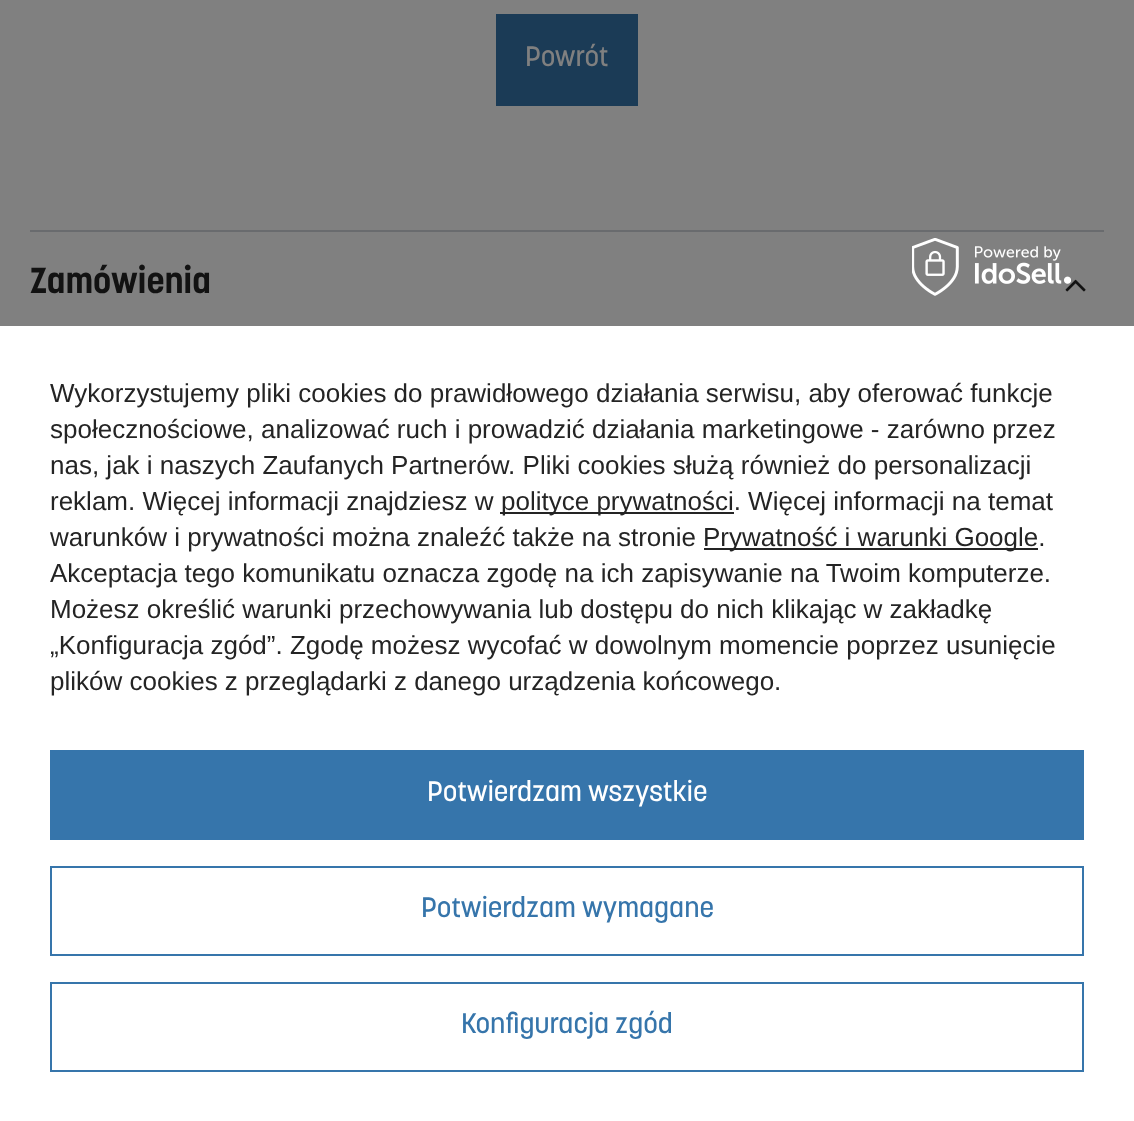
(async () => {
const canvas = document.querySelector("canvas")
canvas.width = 1134
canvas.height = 1121
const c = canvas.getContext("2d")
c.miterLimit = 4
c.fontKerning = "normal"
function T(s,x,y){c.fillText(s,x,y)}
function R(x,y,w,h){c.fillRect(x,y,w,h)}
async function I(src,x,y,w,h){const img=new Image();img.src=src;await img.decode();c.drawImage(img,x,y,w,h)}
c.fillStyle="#808080"
R(0,0,1134,1121)
c.fillStyle="#1b3b56"
R(496,14,142,92)
c.font="500 28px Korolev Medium"
c.fillStyle="#808080"
T("Powrót",525,66)
c.fillStyle="#696b6e"
R(30,230,1074,2)
c.font="bold 36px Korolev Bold"
c.fillStyle="#121212"
T("Zamówienia",30,293)
await I("1.png",1065,279,21,13)
c.fillStyle="#fff"
R(0,326,1134,795)
await I("2.png",912,238,159,58)
c.font="26px Liberation Sans"
c.fillStyle="#242424"
T("Wykorzystujemy pliki cookies do prawidłowego działania serwisu, aby oferować funkcje",50,402)
T("społecznościowe, analizować ruch i prowadzić działania marketingowe - zarówno przez",50,438)
T("nas, jak i naszych Zaufanych Partnerów. Pliki cookies służą również do personalizacji",50,474)
T("reklam. Więcej informacji znajdziesz w",50,510)
R(500,512,234,2)
T("polityce prywatności. Więcej informacji na temat",501,510)
T("warunków i prywatności można znaleźć także na stronie",50,546)
R(704,548,334,2)
T("Prywatność i warunki Google.",703,546)
T("Akceptacja tego komunikatu oznacza zgodę na ich zapisywanie na Twoim komputerze.",50,582)
T("Możesz określić warunki przechowywania lub dostępu do nich klikając w zakładkę",50,618)
T("„Konfiguracja zgód”. Zgodę możesz wycofać w dowolnym momencie poprzez usunięcie",50,654)
T("plików cookies z przeglądarki z danego urządzenia końcowego.",50,690)
c.fillStyle="#3675ab"
R(50,750,1034,90)
c.font="500 28px Korolev Medium"
c.fillStyle="#fff"
T("Potwierdzam wszystkie",427,801)
c.strokeStyle="#3675ab"
c.lineWidth=2
c.strokeRect(51,867,1032,88)
c.fillStyle="#3675ab"
T("Potwierdzam wymagane",421,917)
c.strokeRect(51,983,1032,88)
T("Konfiguracja zgód",461,1033)
})()
